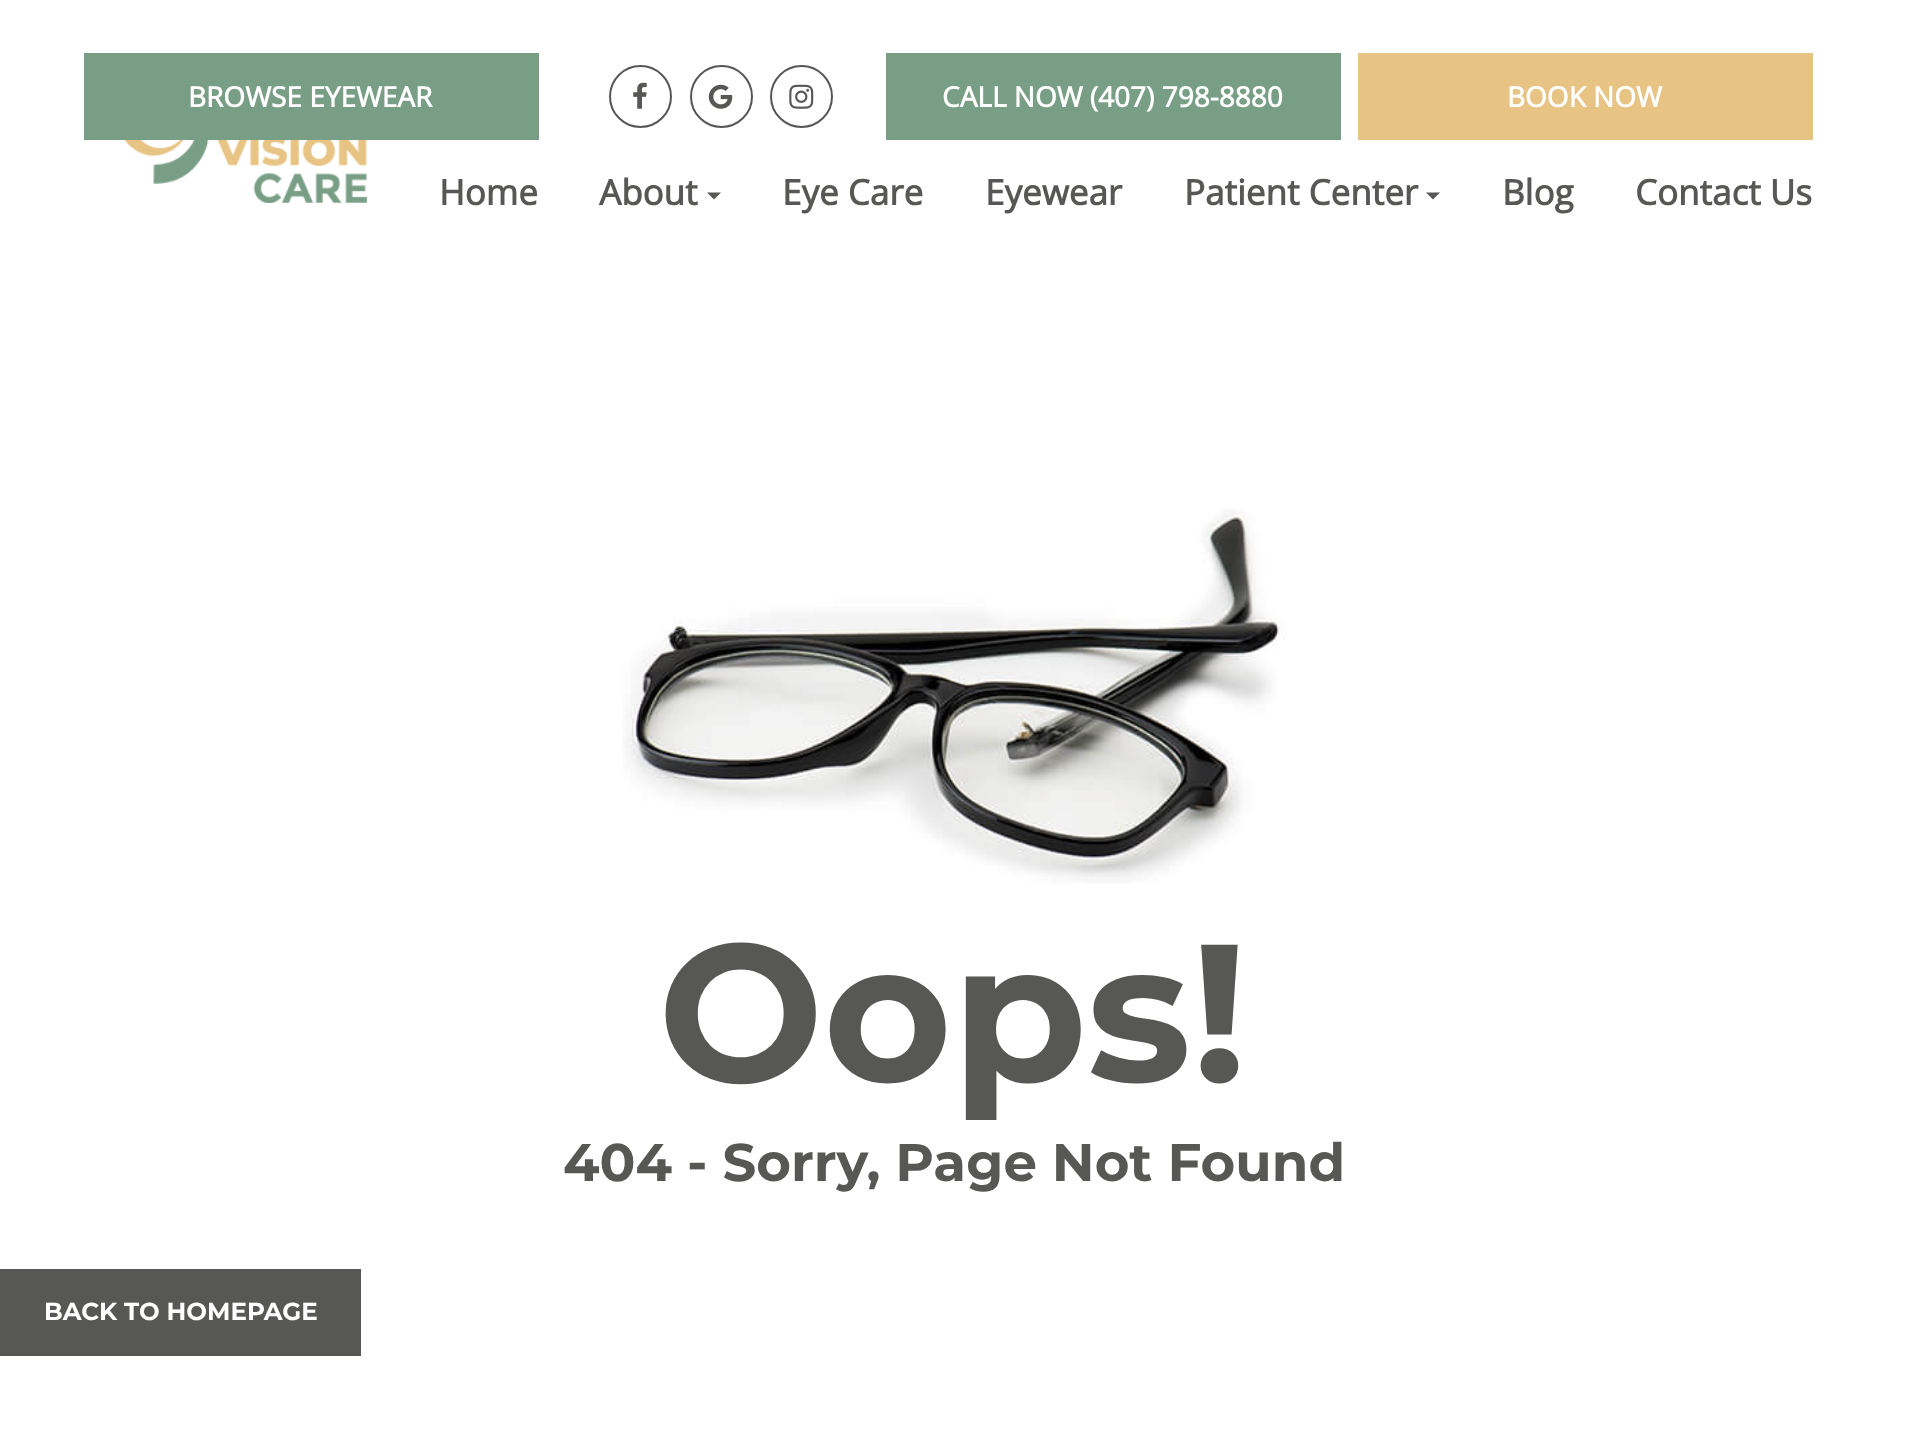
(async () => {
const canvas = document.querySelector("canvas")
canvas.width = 1907
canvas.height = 1453
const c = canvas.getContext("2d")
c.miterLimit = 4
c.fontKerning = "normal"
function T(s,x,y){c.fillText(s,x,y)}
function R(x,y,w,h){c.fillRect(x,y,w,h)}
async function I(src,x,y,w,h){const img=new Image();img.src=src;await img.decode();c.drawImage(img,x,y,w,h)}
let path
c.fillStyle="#fff"
R(0,0,1907,1453)
c.fillStyle="#789e85"
R(84,53,455,87)
c.font="bold 28px Open Sans"
c.fillStyle="#fff"
T("BROWSE EYEWEAR",188,107)
c.beginPath()
c.arc(640.5,96.5,30.5,0,7)
c.strokeStyle="#575756"
c.lineWidth=2
c.stroke()
await I("1.png",633,82,14,27)
c.beginPath()
c.arc(721.5,96.5,30.5,0,7)
c.stroke()
await I("2.png",708,84,25,25)
c.beginPath()
c.arc(801.5,96.5,30.5,0,7)
c.stroke()
await I("3.png",789,84,25,25)
c.fillStyle="#789e85"
R(886,53,455,87)
c.fillStyle="#fff"
T("CALL NOW (407) 798-8880",942,107)
c.fillStyle="#e7c384"
R(1358,53,455,87)
c.fillStyle="#fff"
T("BOOK NOW",1507,107)
c.font="bold 35px Open Sans"
c.fillStyle="#575756"
T("Home",439,205)
T("About",599,205)
path = new Path2D("M707 192.5h14l-7 7z")
c.fill(path)
T("Eye Care",782,205)
T("Eyewear",985,205)
T("Patient Center",1184,205)
path = new Path2D("M1426 192.5h14l-7 7z")
c.fill(path)
T("Blog",1502,205)
T("Contact Us",1635,205)
await I("4.png",124,140,244,63)
await I("5.png",622,508,664,376)
c.font="100 196px Montserrat"
T("Oops!",658,1082)
c.font="100 53px Montserrat"
T("404 - Sorry, Page Not Found",563,1181)
R(0,1269,361,87)
c.font="100 24.5px Montserrat"
c.fillStyle="#fff"
T("BACK TO HOMEPAGE",44,1320)
})()
